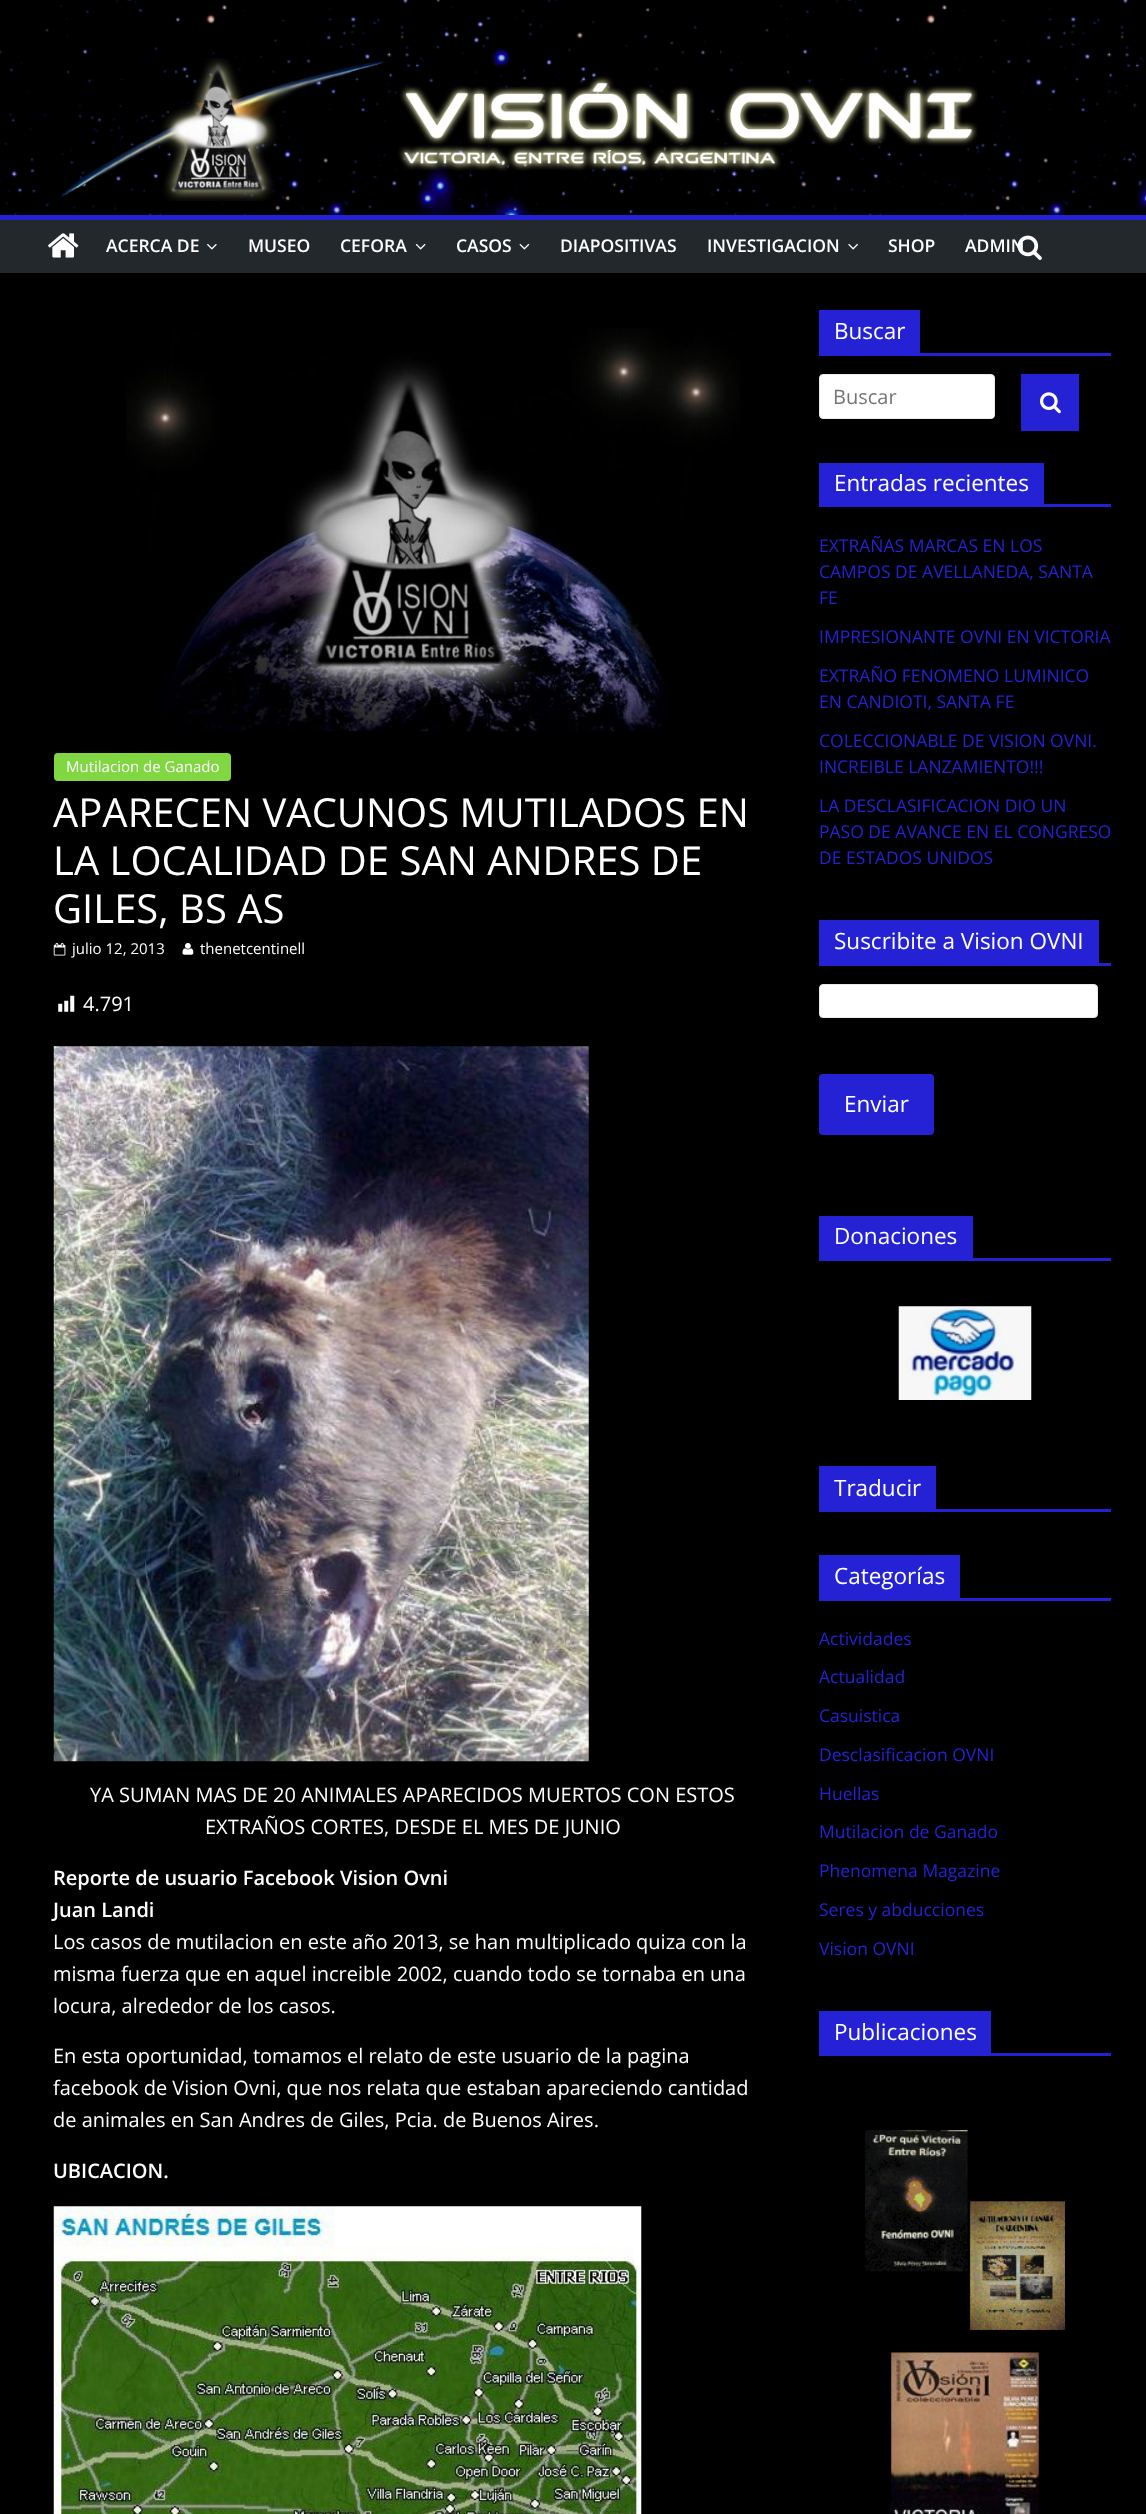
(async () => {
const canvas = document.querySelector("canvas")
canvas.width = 1146
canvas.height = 2514
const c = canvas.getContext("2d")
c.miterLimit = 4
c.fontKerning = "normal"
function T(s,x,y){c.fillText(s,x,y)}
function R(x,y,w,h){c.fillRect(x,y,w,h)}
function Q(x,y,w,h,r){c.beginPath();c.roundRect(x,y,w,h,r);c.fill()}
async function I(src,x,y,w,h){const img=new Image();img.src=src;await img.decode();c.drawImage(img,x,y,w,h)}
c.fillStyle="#fff"
R(0,0,1146,2514)
await I("1.png",0,0,1146,215)
await I("2.png",57,58,921,143)
c.fillStyle="#23282d"
R(0,220,1146,53)
c.fillStyle="#2522d6"
R(0,215,1146,5)
await I("3.png",48,233,31,25)
c.font="600 17.5px Open Sans"
c.fillStyle="#fff"
T("ACERCA DE",106,252)
await I("4.png",207,243,10,7)
T("MUSEO",248,252)
T("CEFORA",340,252)
await I("5.png",415,243,11,7)
T("CASOS",456,252)
await I("6.png",519,243,11,7)
T("DIAPOSITIVAS",560,252)
T("INVESTIGACION",707,252)
await I("7.png",848,243,10,7)
T("SHOP",888,252)
T("ADMIN",965,252)
await I("8.png",1017,235,25,25)
c.fillStyle="#000"
R(0,273,1146,2241)
await I("9.png",126,328,614,404)
c.fillStyle="#81d742"
Q(54,753,177,28,4)
c.font="15px Open Sans"
c.fillStyle="#fff"
T("Mutilacion de Ganado",66,772)
c.font="40px Open Sans"
T("APARECEN VACUNOS MUTILADOS EN",53,827)
T("LA LOCALIDAD DE SAN ANDRES DE",53,875)
T("GILES, BS AS",53,923)
await I("10.png",53,943,13,13)
c.font="15px Open Sans"
T("julio 12, 2013",72,954)
await I("11.png",182,943,12,12)
T("thenetcentinell",200,954)
await I("12.png",58,995,17,17)
c.font="20px Open Sans"
T("4.791",83,1011)
await I("13.png",53,1046,536,716)
T("YA SUMAN MAS DE 20 ANIMALES APARECIDOS MUERTOS CON ESTOS",90,1802)
T("EXTRAÑOS CORTES, DESDE EL MES DE JUNIO",205,1834)
c.font="600 20px Open Sans"
T("Reporte de usuario Facebook Vision Ovni",53,1885)
T("Juan Landi",53,1917)
c.font="20px Open Sans"
T("Los casos de mutilacion en este año 2013, se han multiplicado quiza con la",53,1949)
T("misma fuerza que en aquel increible 2002, cuando todo se tornaba en una",53,1981)
T("locura, alrededor de los casos.",53,2013)
T("En esta oportunidad, tomamos el relato de este usuario de la pagina",53,2063)
T("facebook de Vision Ovni, que nos relata que estaban apareciendo cantidad",53,2095)
T("de animales en San Andres de Giles, Pcia. de Buenos Aires.",53,2127)
c.font="600 20px Open Sans"
T("UBICACION.",53,2178)
await I("14.png",53,2206,589,308)
c.fillStyle="#2522d6"
R(819,353,292,3)
R(819,310,101,43)
c.font="22.5px Open Sans"
c.fillStyle="#fff"
T("Buscar",834,339)
c.beginPath()
c.roundRect(819.5,374.5,175,44,3.5)
c.fill()
c.strokeStyle="#eaeaea"
c.stroke()
c.font="20px Open Sans"
c.fillStyle="#757575"
T("Buscar",833,404)
c.fillStyle="#2522d6"
R(1021,374,58,57)
await I("15.png",1040,392,21,22)
R(819,504,292,3)
R(819,463,225,41)
c.font="22.5px Open Sans"
c.fillStyle="#fff"
T("Entradas recientes",834,491)
c.font="17.5px Open Sans"
c.fillStyle="#2522d6"
T("EXTRAÑAS MARCAS EN LOS",819,552)
T("CAMPOS DE AVELLANEDA, SANTA",819,578)
T("FE",819,604)
T("IMPRESIONANTE OVNI EN VICTORIA",819,643)
T("EXTRAÑO FENOMENO LUMINICO",819,682)
T("EN CANDIOTI, SANTA FE",819,708)
T("COLECCIONABLE DE VISION OVNI.",819,747)
T("INCREIBLE LANZAMIENTO!!!",819,773)
T("LA DESCLASIFICACION DIO UN",819,812)
T("PASO DE AVANCE EN EL CONGRESO",819,838)
T("DE ESTADOS UNIDOS",819,864)
R(819,963,292,3)
R(819,920,280,43)
c.font="22.5px Open Sans"
c.fillStyle="#fff"
T("Suscribite a Vision OVNI",834,949)
c.beginPath()
c.roundRect(819.5,984.5,278,33,3.5)
c.fill()
c.stroke()
c.fillStyle="#2522d6"
Q(819,1074,115,61,4)
c.fillStyle="#fff"
T("Enviar",844,1112)
c.fillStyle="#2522d6"
R(819,1258,292,3)
R(819,1216,154,42)
c.fillStyle="#fff"
T("Donaciones",834,1244)
await I("16.png",898,1306,134,94)
c.fillStyle="#2522d6"
R(819,1509,292,3)
R(819,1466,117,43)
c.fillStyle="#fff"
T("Traducir",834,1496)
c.fillStyle="#2522d6"
R(819,1598,292,3)
R(819,1555,141,43)
c.fillStyle="#fff"
T("Categorías",834,1584)
c.font="17.5px Open Sans"
c.fillStyle="#2522d6"
T("Actividades",819,1645)
T("Actualidad",819,1683)
T("Casuistica",819,1722)
T("Desclasificacion OVNI",819,1761)
T("Huellas",819,1800)
T("Mutilacion de Ganado",819,1838)
T("Phenomena Magazine",819,1877)
T("Seres y abducciones",819,1916)
T("Vision OVNI",819,1955)
R(819,2053,292,3)
R(819,2011,172,42)
c.font="22.5px Open Sans"
c.fillStyle="#fff"
T("Publicaciones",834,2040)
await I("17.png",865,2130,200,200)
await I("18.png",891,2352,148,162)
})()
